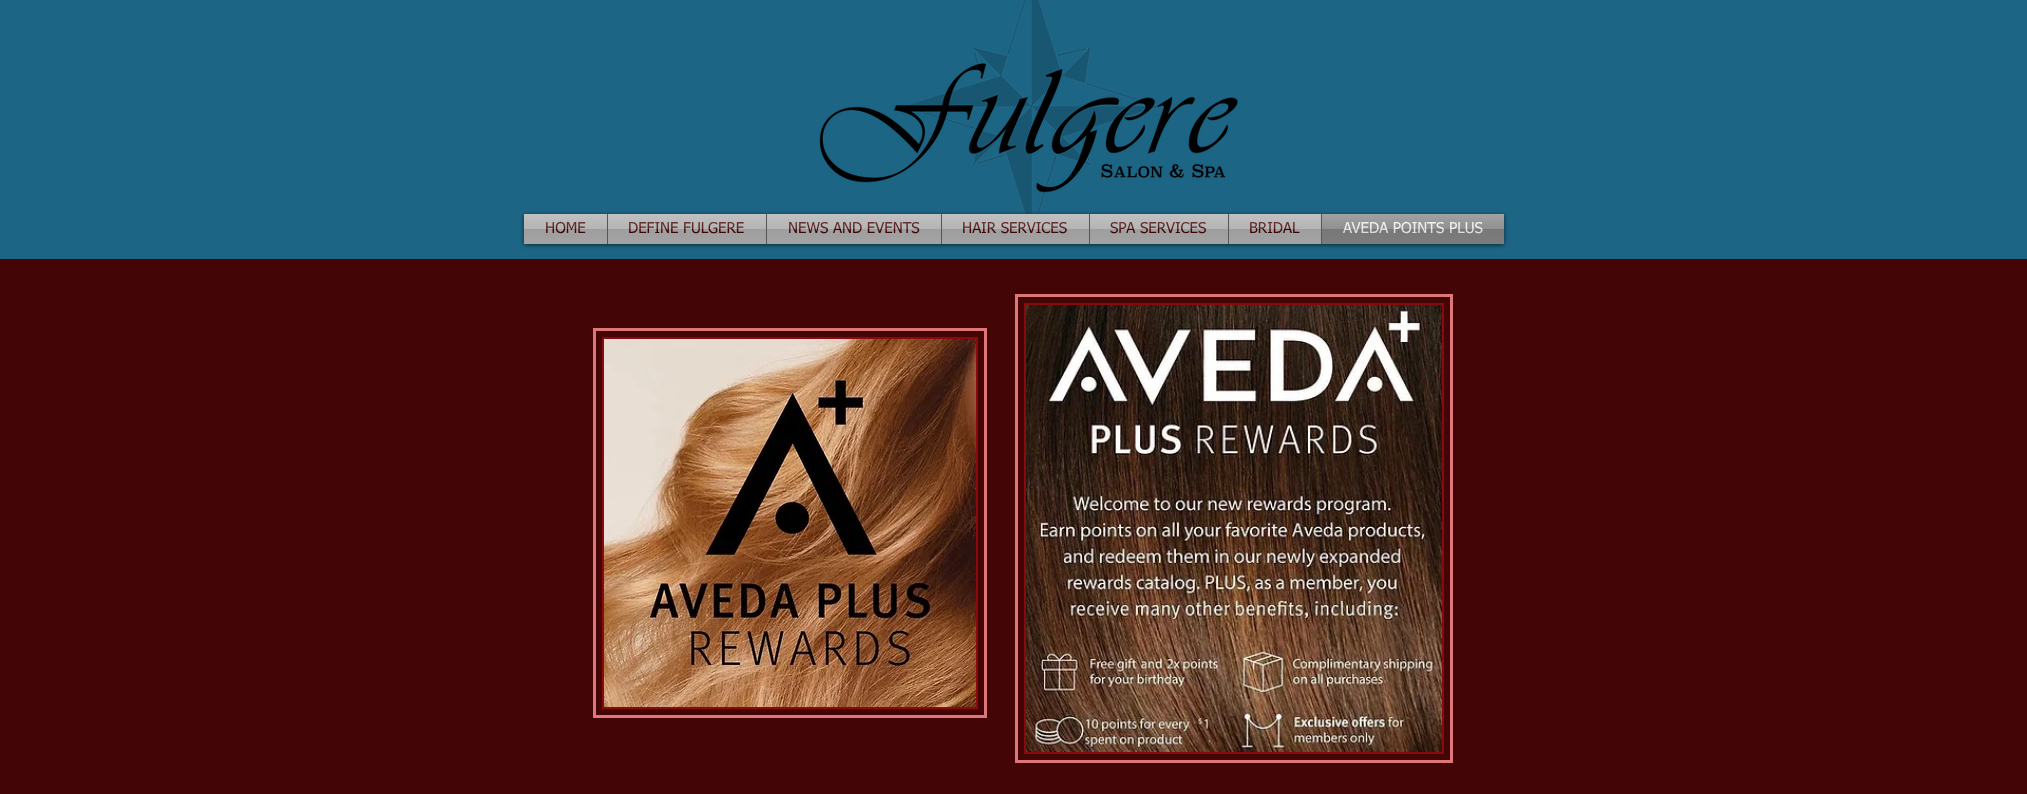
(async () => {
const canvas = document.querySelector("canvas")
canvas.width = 2027
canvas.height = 794
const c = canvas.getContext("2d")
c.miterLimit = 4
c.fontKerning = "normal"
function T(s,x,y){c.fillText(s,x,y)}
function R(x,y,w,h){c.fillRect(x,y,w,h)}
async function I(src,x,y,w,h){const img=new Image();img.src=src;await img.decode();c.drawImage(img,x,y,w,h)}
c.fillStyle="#1c6585"
R(0,0,2027,794)
await I("1.png",819,0,419,214)
c.fillStyle="#00000099"
c.filter="blur(2px)"
c.beginPath()
c.rect(524,215,980,30)
c.fill()
c.filter="none"
c.fillStyle="#ababab"
R(524,214,83,30)
c.font="15px tahoma"
c.fillStyle="#440506"
T("HOME",545,233)
await I("2.png",524,214,83,30)
c.fillStyle="#ababab"
R(608,214,158,30)
c.fillStyle="#565656"
R(607,214,1,30)
c.fillStyle="#440506"
T("DEFINE FULGERE",628,233)
await I("3.png",608,214,158,30)
c.fillStyle="#ababab"
R(767,214,174,30)
c.fillStyle="#565656"
R(766,214,1,30)
c.fillStyle="#440506"
T("NEWS AND EVENTS",788,233)
await I("4.png",767,214,174,30)
c.fillStyle="#ababab"
R(942,214,147,30)
c.fillStyle="#565656"
R(941,214,1,30)
c.fillStyle="#440506"
T("HAIR SERVICES",962,233)
await I("5.png",942,214,147,30)
c.fillStyle="#ababab"
R(1090,214,138,30)
c.fillStyle="#565656"
R(1089,214,1,30)
c.fillStyle="#440506"
T("SPA SERVICES",1110,233)
await I("6.png",1090,214,138,30)
c.fillStyle="#ababab"
R(1229,214,92,30)
c.fillStyle="#565656"
R(1228,214,1,30)
c.fillStyle="#440506"
T("BRIDAL",1249,233)
await I("7.png",1229,214,92,30)
c.fillStyle="#828282"
R(1322,214,182,30)
c.fillStyle="#565656"
R(1321,214,1,30)
c.fillStyle="#ededed"
T("AVEDA POINTS PLUS",1343,233)
await I("8.png",1322,214,182,30)
c.fillStyle="#440506"
R(0,259,2027,535)
c.strokeStyle="#dd7779"
c.lineWidth=3
c.strokeRect(594.5,329.5,391,387)
await I("9.png",604,339,372,368)
c.strokeStyle="#880a0c"
c.lineWidth=2
c.strokeRect(603,338,374,370)
c.strokeStyle="#dd7779"
c.lineWidth=3
c.strokeRect(1016.5,295.5,435,466)
await I("10.png",1026,305,416,447)
c.strokeStyle="#880a0c"
c.lineWidth=2
c.strokeRect(1025,304,418,449)
})()
